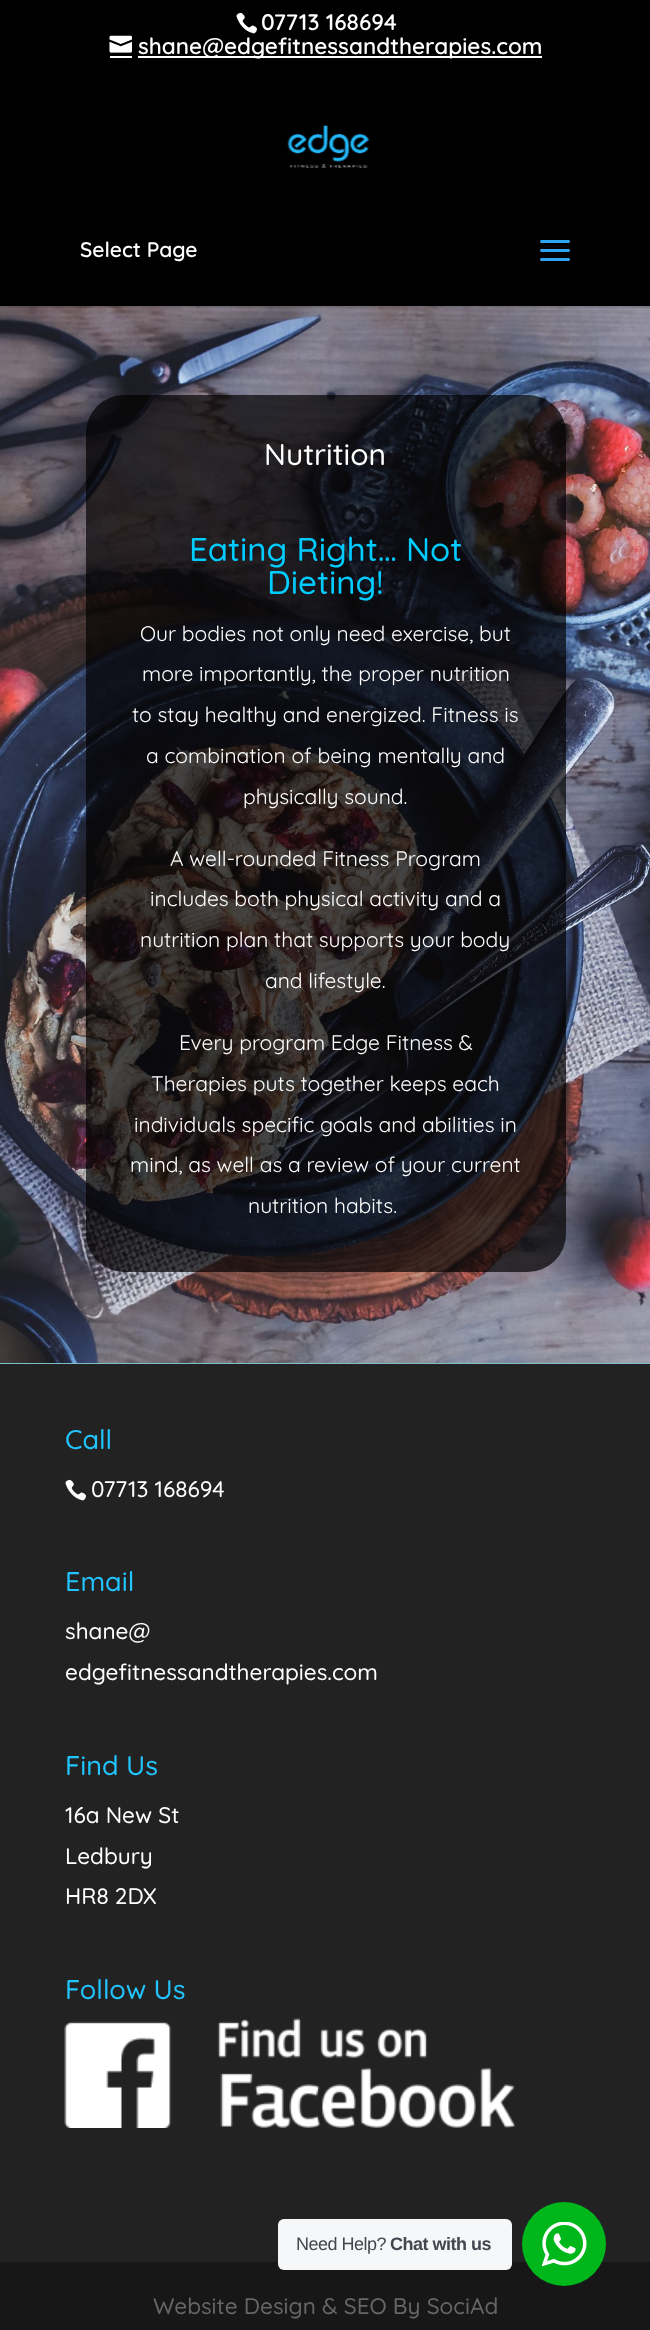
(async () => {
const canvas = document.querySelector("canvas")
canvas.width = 650
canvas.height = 2330
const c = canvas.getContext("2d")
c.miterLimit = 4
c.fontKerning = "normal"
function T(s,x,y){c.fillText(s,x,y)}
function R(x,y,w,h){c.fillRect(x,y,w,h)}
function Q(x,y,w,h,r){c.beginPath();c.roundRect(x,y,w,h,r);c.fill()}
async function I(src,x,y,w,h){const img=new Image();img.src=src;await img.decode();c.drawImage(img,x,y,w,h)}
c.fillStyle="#222"
R(0,0,650,2330)
c.fillStyle="#000"
R(0,0,650,306)
await I("1.png",236,12,21,22)
c.font="600 22.5px Quicksand"
c.fillStyle="#fff"
T("07713 168694",261,30)
await I("2.png",109,35,23,18)
R(138,56,404,2)
T("shane@edgefitnessandtherapies.com",138,54)
R(110,56,22,2)
await I("5.png",0,306,650,1057)
c.fillStyle="#0000001a"
R(0,306,650,2)
await I("3.png",287,125,83,43)
c.font="600 21px Quicksand"
c.fillStyle="#fff"
T("Select Page",80,257)
await I("4.png",540,240,30,21)
c.fillStyle="#7ebec5"
R(0,1363,650,1)
c.fillStyle="#020000b0"
Q(86,395,480,877,38)
c.font="500 30px Quicksand"
c.fillStyle="#fff"
T("Nutrition",264,465)
c.font="500 33px Quicksand"
c.fillStyle="#0cf"
T("Eating Right… Not",189,561)
T("Dieting!",267,594)
c.font="21px Quicksand"
c.fillStyle="#fff"
T("Our bodies not only need exercise, but",140,641)
T("more importantly, the proper nutrition",142,681)
T("to stay healthy and energized. Fitness is",132,722)
T("a combination of being mentally and",146,763)
T("physically sound.",243,804)
T("A well-rounded Fitness Program",170,866)
T("includes both physical activity and a",150,906)
T("nutrition plan that supports your body",140,947)
T("and lifestyle.",265,988)
T("Every program Edge Fitness &",179,1050)
T("Therapies puts together keeps each",151,1091)
T("individuals specific goals and abilities in",134,1132)
T("mind, as well as a review of your current",130,1172)
T("nutrition habits.",248,1213)
c.font="500 27px Quicksand"
c.fillStyle="#22c4fe"
T("Call",65,1449)
await I("6.png",65,1479,21,22)
c.font="500 22.5px Quicksand"
c.fillStyle="#fff"
T("07713 168694",91,1497)
c.font="500 27px Quicksand"
c.fillStyle="#22c4fe"
T("Email",65,1591)
c.font="500 22.5px Quicksand"
c.fillStyle="#fff"
T("shane@",65,1639)
T("edgefitnessandtherapies.com",65,1680)
c.font="500 27px Quicksand"
c.fillStyle="#22c4fe"
T("Find Us",65,1775)
c.font="500 22.5px Quicksand"
c.fillStyle="#fff"
T("16a New St",65,1823)
T("Ledbury",65,1864)
T("HR8 2DX",65,1904)
c.font="500 27px Quicksand"
c.fillStyle="#22c4fe"
T("Follow Us",65,1999)
await I("7.png",64,2018,451,110)
c.fillStyle="#171717"
R(0,2262,650,68)
c.font="500 22.5px Quicksand"
c.fillStyle="#666"
T("Website Design & SEO By SociAd",153,2314)
c.fillStyle="#f5f7f9"
Q(278,2219,234,51,6)
c.letterSpacing="-0.5px"
c.font="18px Liberation Sans"
c.fillStyle="#43474e"
T("Need Help?",296,2250)
c.font="bold 18px Liberation Sans"
T("Chat with us",390,2250)
c.fillStyle="#00b71b"
c.beginPath()
c.arc(564,2244,42,0,7)
c.fill()
await I("8.png",542,2222,45,45)
})()
